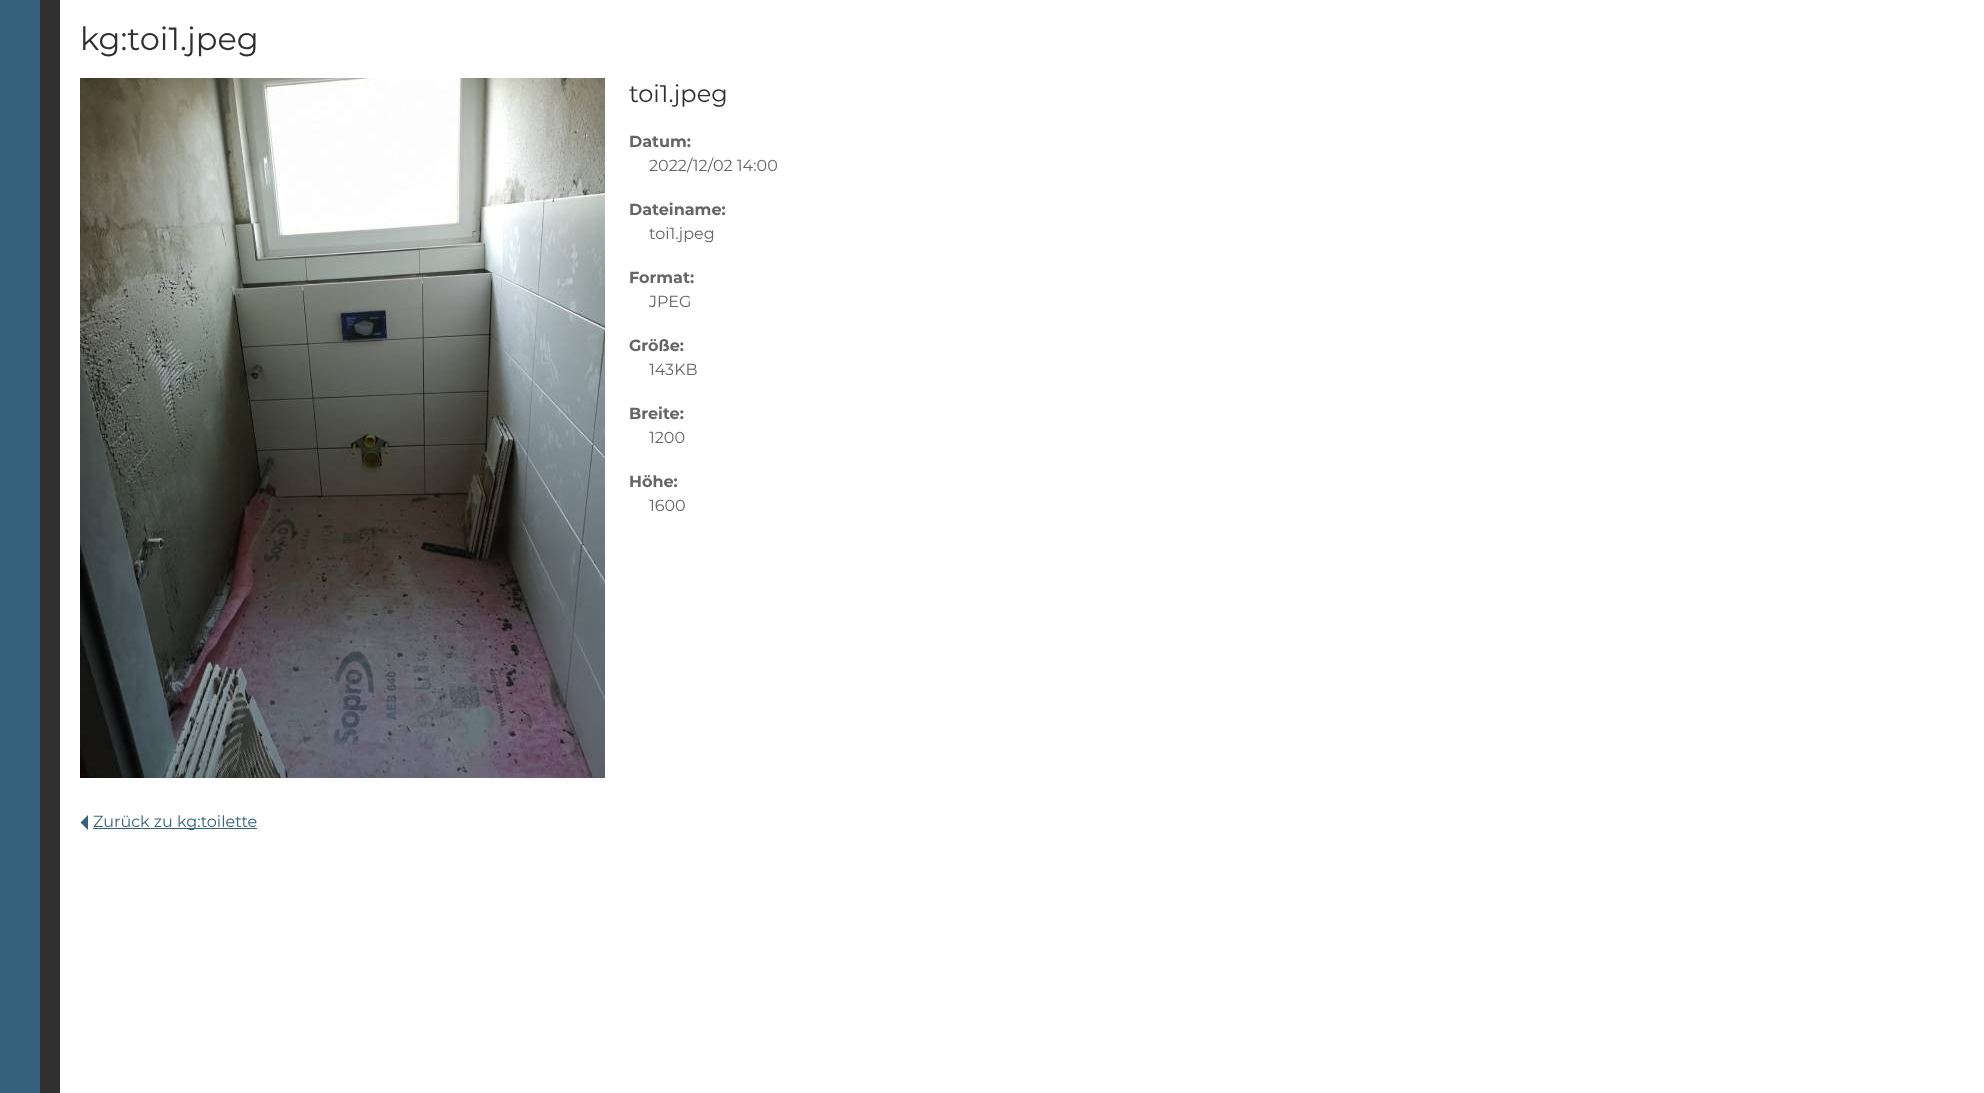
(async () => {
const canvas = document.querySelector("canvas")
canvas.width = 1984
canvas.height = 1093
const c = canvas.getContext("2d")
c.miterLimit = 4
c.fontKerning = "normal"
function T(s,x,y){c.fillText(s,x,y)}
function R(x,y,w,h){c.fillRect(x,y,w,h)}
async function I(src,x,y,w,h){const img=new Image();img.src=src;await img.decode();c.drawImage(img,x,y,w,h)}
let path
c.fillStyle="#fff"
R(0,0,1984,1093)
c.fillStyle="#35627c"
R(0,0,40,1093)
c.fillStyle="#303030"
R(40,0,20,1093)
c.font="32px Montserrat"
T("kg:toi1.jpeg",80,50)
await I("1.png",80,78,525,700)
c.font="24px Montserrat"
T("toi1.jpeg",629,102)
c.font="bold 16px Montserrat"
c.fillStyle="#656565"
T("Datum:",629,147)
c.font="16px Montserrat"
T("2022/12/02 14:00",649,171)
c.font="bold 16px Montserrat"
T("Dateiname:",629,215)
c.font="16px Montserrat"
T("toi1.jpeg",649,239)
c.font="bold 16px Montserrat"
T("Format:",629,283)
c.font="16px Montserrat"
T("JPEG",649,307)
c.font="bold 16px Montserrat"
T("Größe:",629,351)
c.font="16px Montserrat"
T("143KB",649,375)
c.font="bold 16px Montserrat"
T("Breite:",629,419)
c.font="16px Montserrat"
T("1200",649,443)
c.font="bold 16px Montserrat"
T("Höhe:",629,487)
c.font="16px Montserrat"
T("1600",649,511)
c.fillStyle="#35627c"
path = new Path2D("M88 815v15l-7.5-7.5z")
c.fill(path)
R(93,828,164,1)
T("Zurück zu kg:toilette",93,827)
})()
